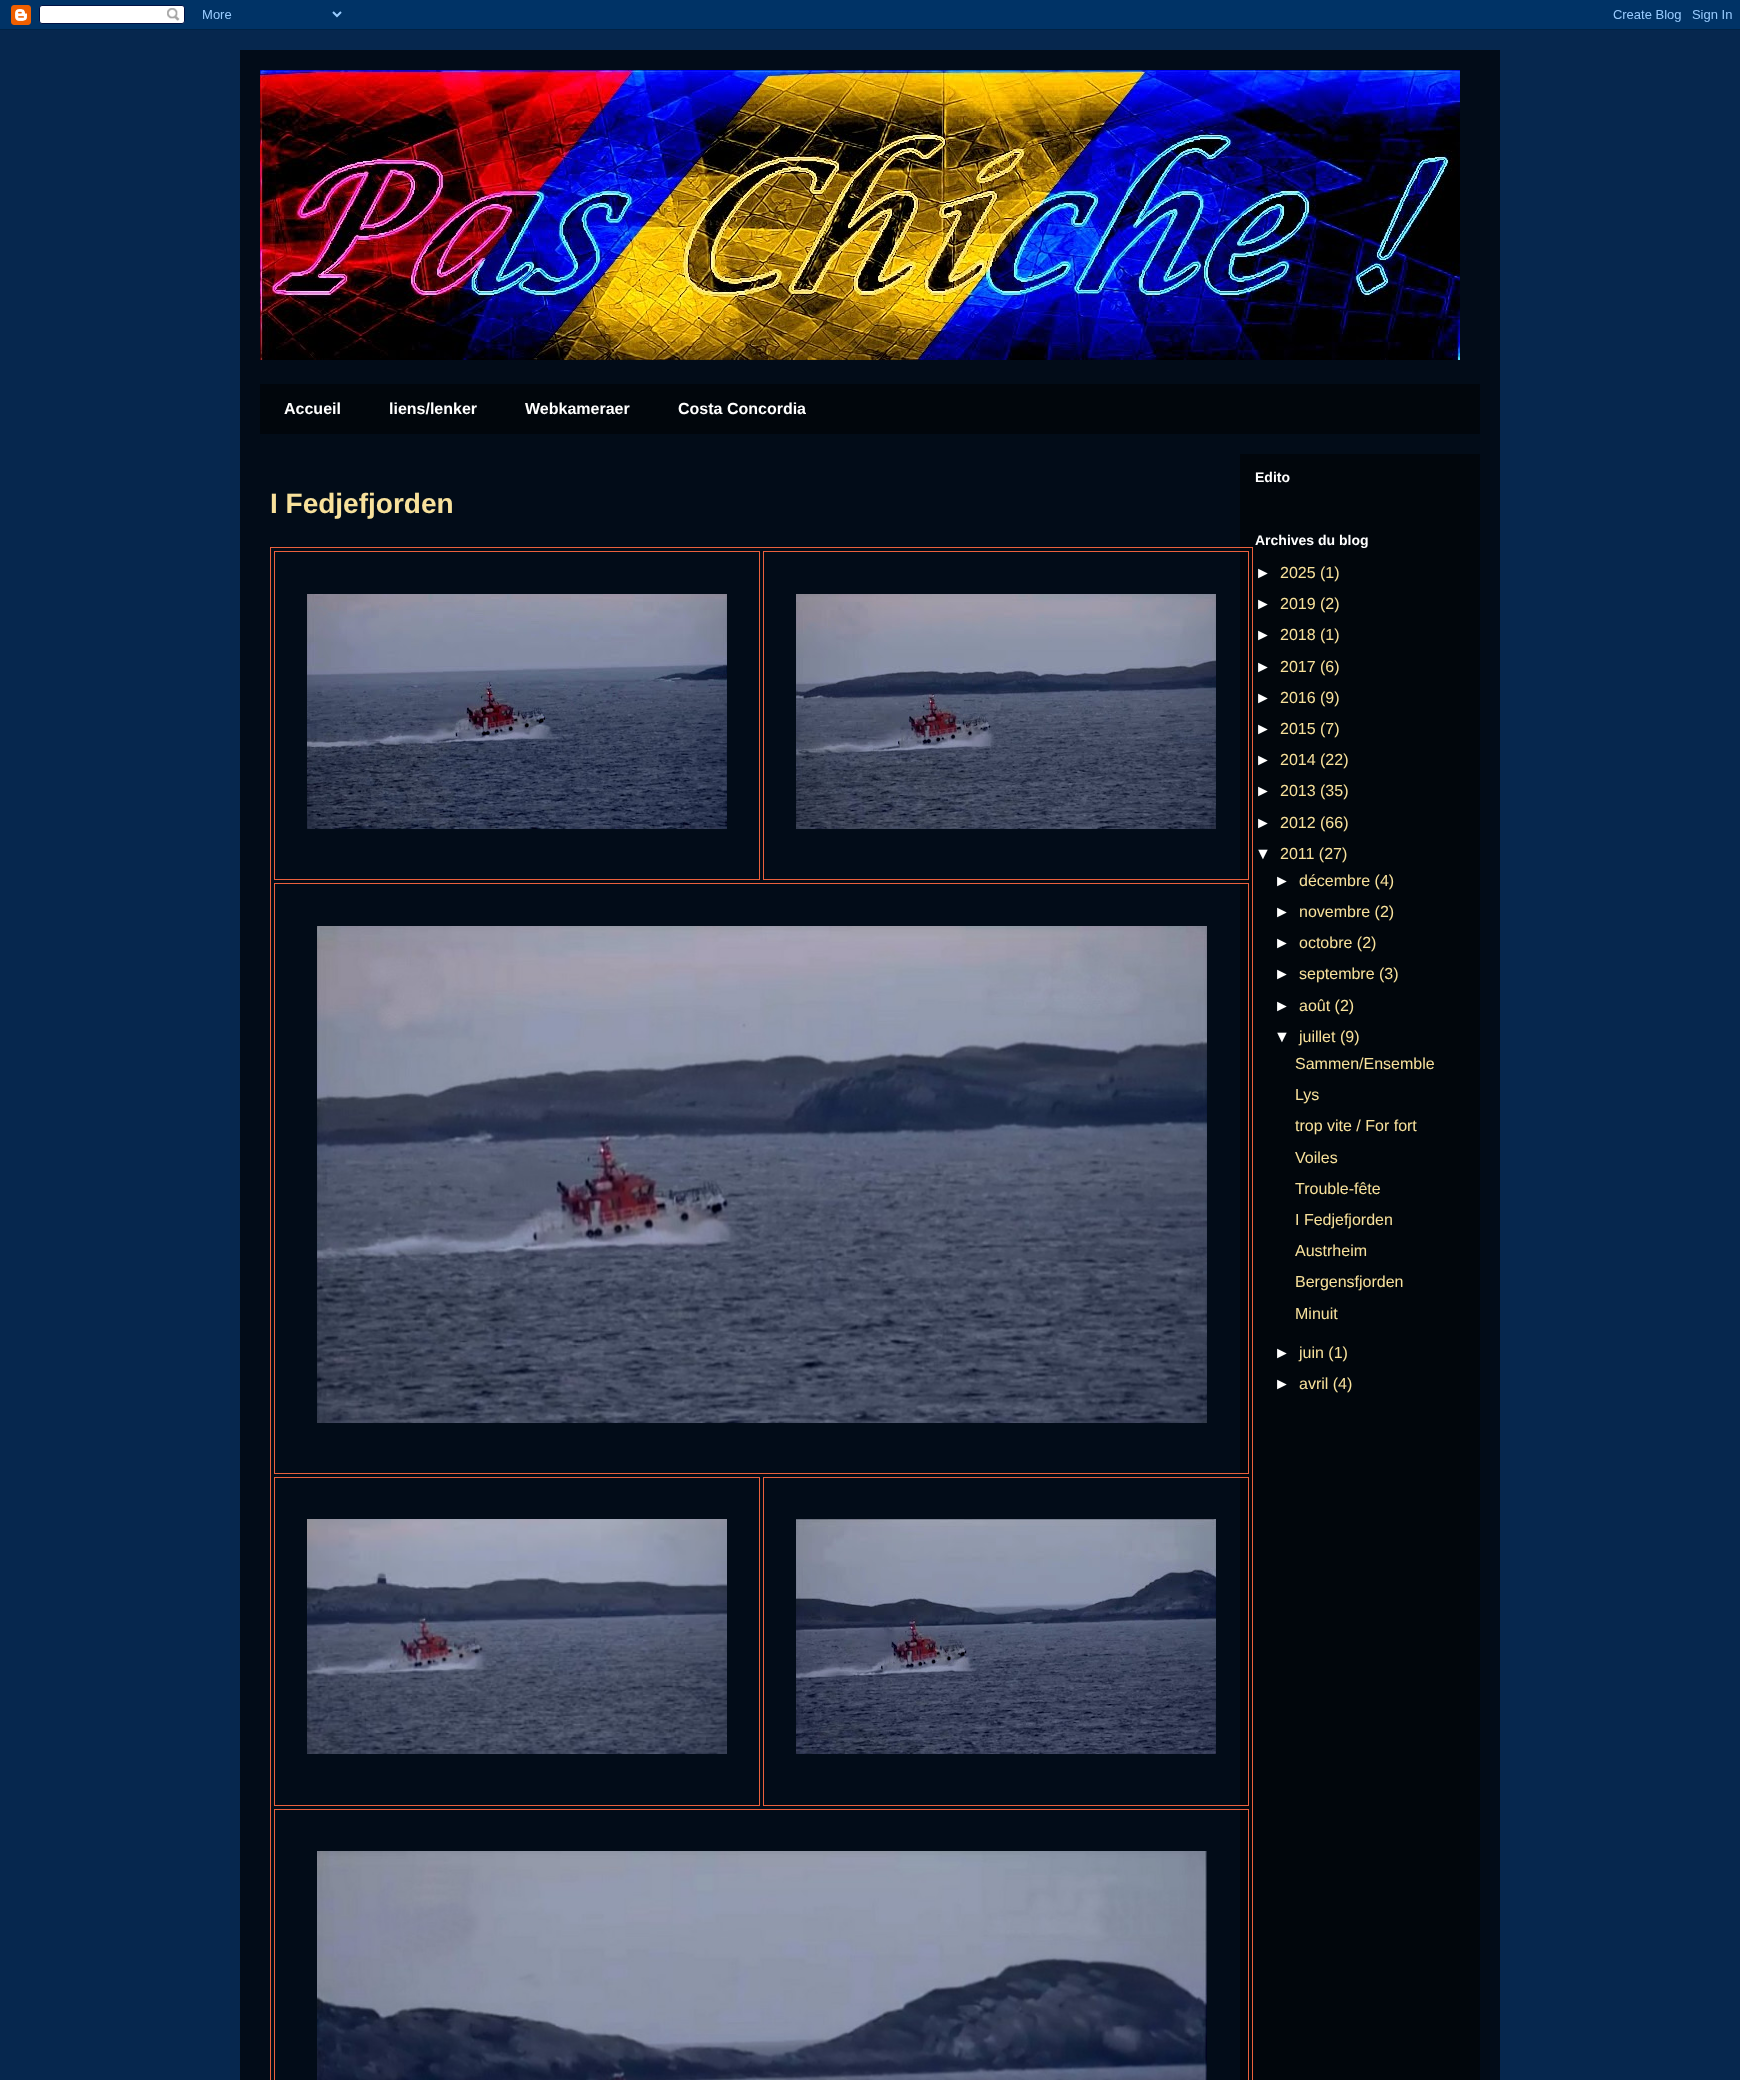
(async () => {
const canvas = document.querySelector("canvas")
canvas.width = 1740
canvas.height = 2080
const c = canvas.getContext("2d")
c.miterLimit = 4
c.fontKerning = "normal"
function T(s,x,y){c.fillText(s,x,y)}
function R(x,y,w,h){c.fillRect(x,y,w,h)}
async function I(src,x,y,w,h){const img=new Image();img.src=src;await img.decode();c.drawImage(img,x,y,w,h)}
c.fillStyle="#06274e"
R(0,0,1740,2080)
await I("1.png",0,0,1740,30)
c.fillStyle="#020c18"
R(240,50,1260,2030)
await I("2.png",260,70,1200,290)
c.fillStyle="#01060c"
R(260,384,1220,50)
c.font="bold 16px Liberation Sans"
c.fillStyle="#fff"
T("Accueil",284,414)
T("liens/lenker",389,414)
T("Webkameraer",525,414)
T("Costa Concordia",678,414)
c.fillStyle="#01060c"
R(1240,454,240,1626)
c.font="bold 28px Liberation Sans"
c.fillStyle="#f8e19b"
T("I Fedjefjorden",270,513)
c.strokeStyle="#eb613d"
c.strokeRect(270.5,547.5,982,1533)
c.strokeRect(274.5,551.5,485,328)
await I("3.png",307,594,420,235)
c.strokeRect(763.5,551.5,485,328)
await I("4.png",796,594,420,235)
c.strokeRect(274.5,883.5,974,590)
await I("5.png",317,926,890,497)
c.strokeRect(274.5,1477.5,485,328)
await I("6.png",307,1519,420,235)
c.strokeRect(763.5,1477.5,485,328)
await I("7.png",796,1519,420,235)
c.strokeRect(274.5,1809.5,974,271)
await I("8.png",317,1851,890,229)
c.font="bold 14px Liberation Sans"
c.fillStyle="#fff"
T("Edito",1255,482)
T("Archives du blog",1255,545)
c.font="16px Liberation Sans"
T("►",1255,578)
c.fillStyle="#f8e19b"
T("2025 (1)",1280,578)
c.fillStyle="#fff"
T("►",1255,609)
c.fillStyle="#f8e19b"
T("2019 (2)",1280,609)
c.fillStyle="#fff"
T("►",1255,640)
c.fillStyle="#f8e19b"
T("2018 (1)",1280,640)
c.fillStyle="#fff"
T("►",1255,672)
c.fillStyle="#f8e19b"
T("2017 (6)",1280,672)
c.fillStyle="#fff"
T("►",1255,703)
c.fillStyle="#f8e19b"
T("2016 (9)",1280,703)
c.fillStyle="#fff"
T("►",1255,734)
c.fillStyle="#f8e19b"
T("2015 (7)",1280,734)
c.fillStyle="#fff"
T("►",1255,765)
c.fillStyle="#f8e19b"
T("2014 (22)",1280,765)
c.fillStyle="#fff"
T("►",1255,796)
c.fillStyle="#f8e19b"
T("2013 (35)",1280,796)
c.fillStyle="#fff"
T("►",1255,828)
c.fillStyle="#f8e19b"
T("2012 (66)",1280,828)
c.fillStyle="#fff"
T("▼",1255,859)
c.fillStyle="#f8e19b"
T("2011 (27)",1280,859)
c.fillStyle="#fff"
T("►",1274,886)
c.fillStyle="#f8e19b"
T("décembre (4)",1299,886)
c.fillStyle="#fff"
T("►",1274,917)
c.fillStyle="#f8e19b"
T("novembre (2)",1299,917)
c.fillStyle="#fff"
T("►",1274,948)
c.fillStyle="#f8e19b"
T("octobre (2)",1299,948)
c.fillStyle="#fff"
T("►",1274,979)
c.fillStyle="#f8e19b"
T("septembre (3)",1299,979)
c.fillStyle="#fff"
T("►",1274,1011)
c.fillStyle="#f8e19b"
T("août (2)",1299,1011)
c.fillStyle="#fff"
T("▼",1274,1042)
c.fillStyle="#f8e19b"
T("juillet (9)",1299,1042)
T("Sammen/Ensemble",1295,1069)
T("Lys",1295,1100)
T("trop vite / For fort",1295,1131)
T("Voiles",1295,1163)
T("Trouble-fête",1295,1194)
T("I Fedjefjorden",1295,1225)
T("Austrheim",1295,1256)
T("Bergensfjorden",1295,1287)
T("Minuit",1295,1319)
c.fillStyle="#fff"
T("►",1274,1358)
c.fillStyle="#f8e19b"
T("juin (1)",1299,1358)
c.fillStyle="#fff"
T("►",1274,1389)
c.fillStyle="#f8e19b"
T("avril (4)",1299,1389)
})()
